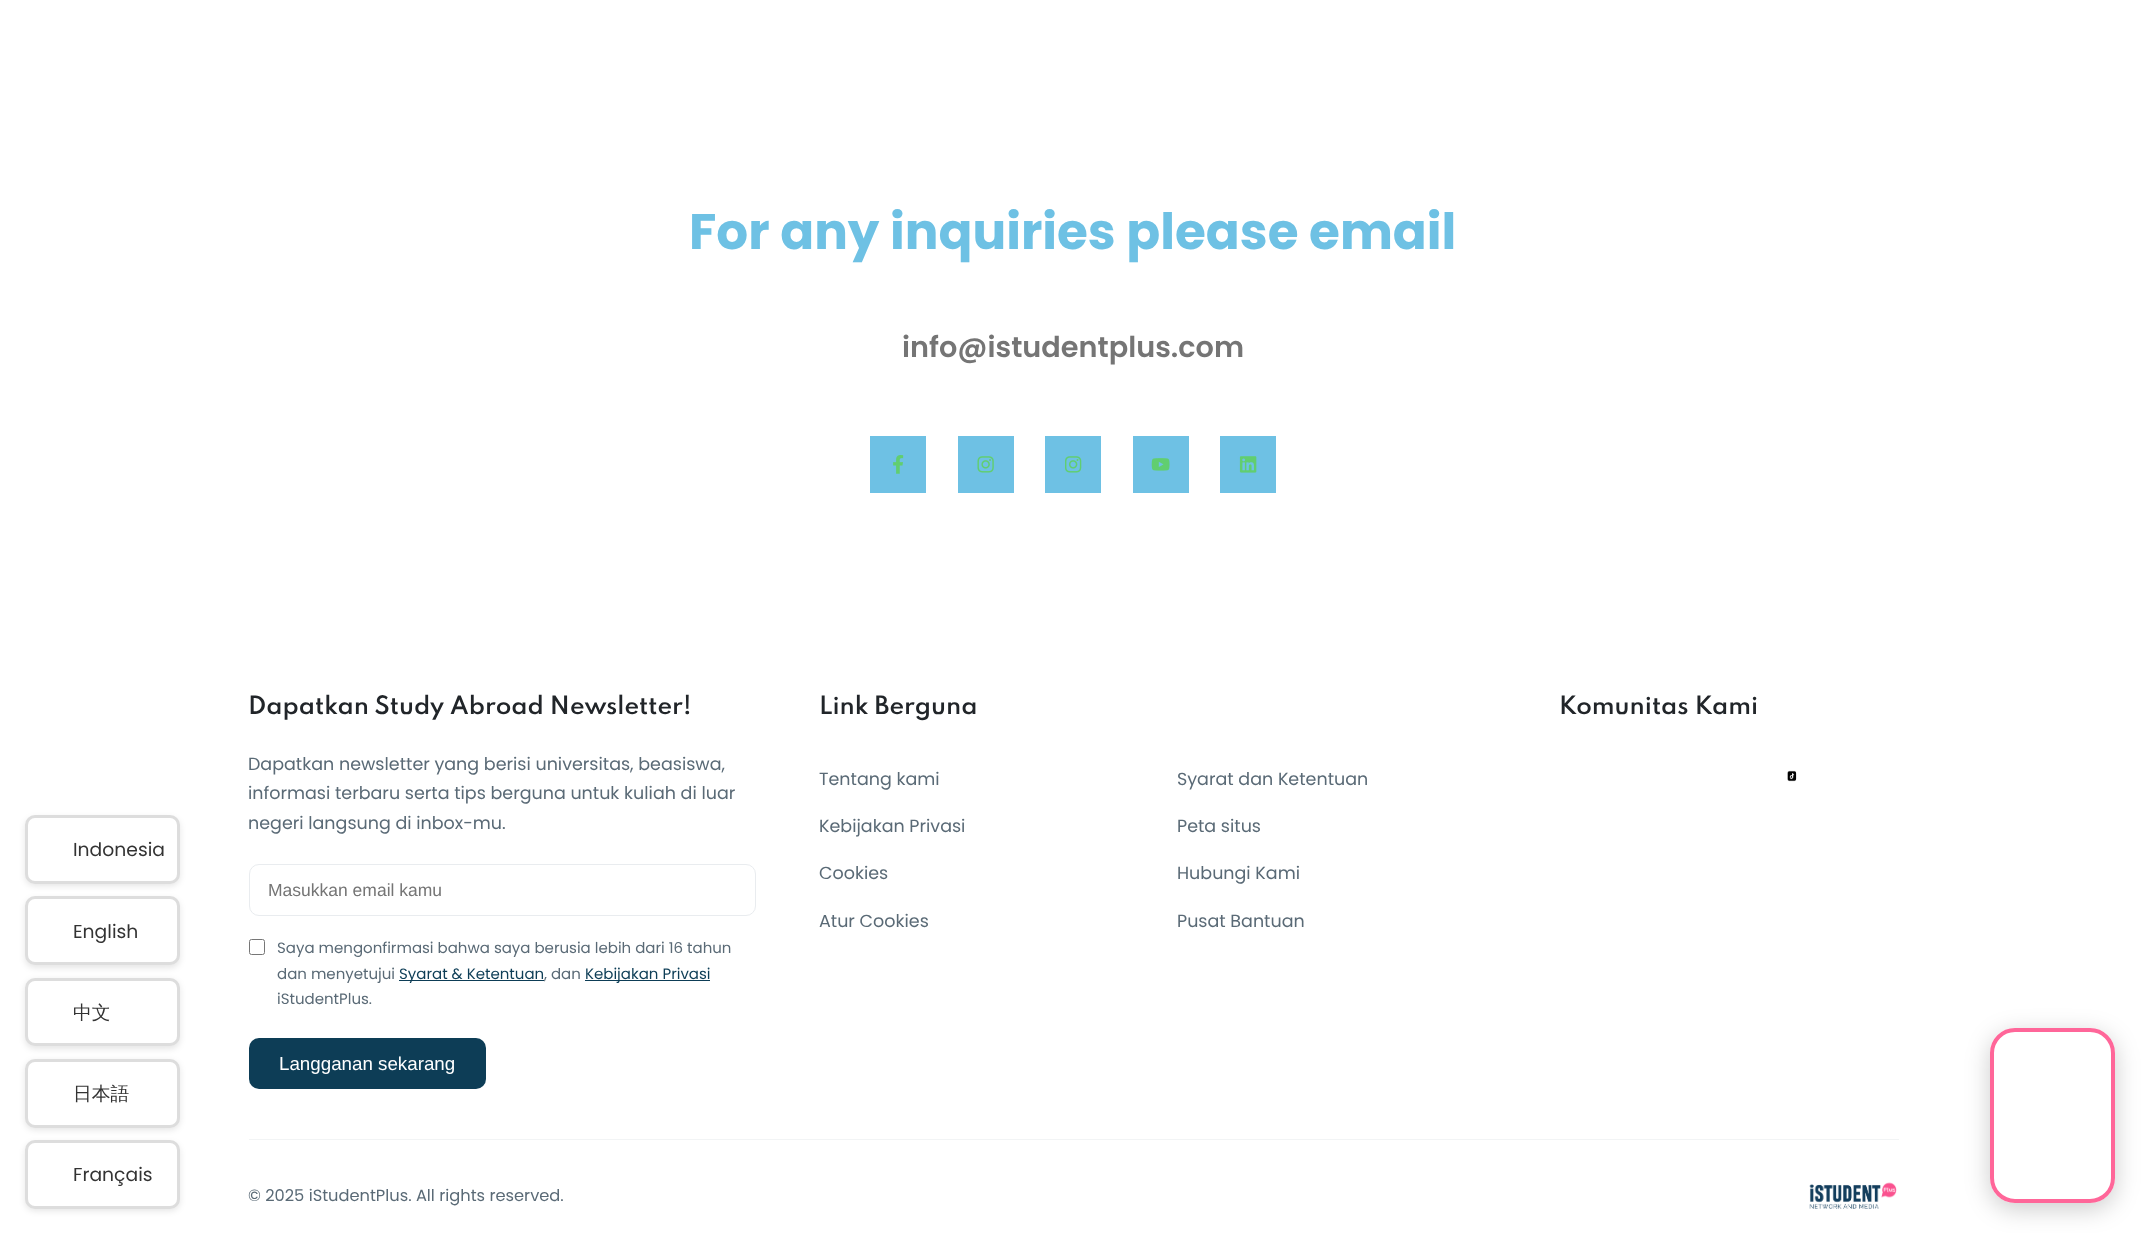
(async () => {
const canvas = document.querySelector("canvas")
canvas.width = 2146
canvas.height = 1233
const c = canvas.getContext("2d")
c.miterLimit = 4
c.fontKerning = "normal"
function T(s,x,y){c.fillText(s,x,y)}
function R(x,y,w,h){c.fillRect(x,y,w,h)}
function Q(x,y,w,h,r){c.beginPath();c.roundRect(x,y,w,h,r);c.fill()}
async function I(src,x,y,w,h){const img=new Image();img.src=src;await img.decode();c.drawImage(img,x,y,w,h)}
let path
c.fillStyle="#fff"
R(0,0,2146,1233)
c.font="bold 50px Poppins"
c.fillStyle="#6ec1e4"
T("For any inquiries please email",689,249)
c.font="600 28.75px Poppins"
c.fillStyle="#757575"
T("info@istudentplus.com",902,357)
c.fillStyle="#6ec1e4"
R(870,436,56,57)
await I("1.png",893,455,11,19)
R(958,436,56,57)
await I("2.png",977,456,17,17)
R(1045,436,56,57)
await I("3.png",1065,456,17,17)
R(1133,436,56,57)
await I("4.png",1151,458,19,13)
R(1220,436,56,57)
await I("5.png",1239,456,18,17)
c.fillStyle="#0000001a"
c.filter="blur(3px)"
c.beginPath()
c.roundRect(25,818,155,68,10)
c.fill()
c.filter="none"
c.fillStyle="#fff"
c.beginPath()
c.roundRect(26.5,816.5,152,66,8.5)
c.fill()
c.strokeStyle="#ddd"
c.lineWidth=3
c.stroke()
c.font="18.75px Poppins"
c.fillStyle="#333"
T("Indonesia",73,856)
c.fillStyle="#0000001a"
c.filter="blur(3px)"
c.beginPath()
c.roundRect(25,899,155,69,10)
c.fill()
c.filter="none"
c.fillStyle="#fff"
c.beginPath()
c.roundRect(26.5,897.5,152,66,8.5)
c.fill()
c.stroke()
c.fillStyle="#333"
T("English",73,938)
c.fillStyle="#0000001a"
c.filter="blur(3px)"
c.beginPath()
c.roundRect(25,980,155,69,10)
c.fill()
c.filter="none"
c.fillStyle="#fff"
c.beginPath()
c.roundRect(26.5,979.5,152,65,8.5)
c.fill()
c.stroke()
c.font="500 18.75px WenQuanYi Zen Hei"
c.fillStyle="#333"
T("中文",73,1019)
c.fillStyle="#0000001a"
c.filter="blur(3px)"
c.beginPath()
c.roundRect(25,1061,155,69,10)
c.fill()
c.filter="none"
c.fillStyle="#fff"
c.beginPath()
c.roundRect(26.5,1060.5,152,66,8.5)
c.fill()
c.stroke()
c.fillStyle="#333"
T("日本語",73,1100)
c.fillStyle="#0000001a"
c.filter="blur(3px)"
c.beginPath()
c.roundRect(25,1143,155,68,10)
c.fill()
c.filter="none"
c.fillStyle="#fff"
c.beginPath()
c.roundRect(26.5,1141.5,152,66,8.5)
c.fill()
c.stroke()
c.font="18.75px Poppins"
c.fillStyle="#333"
T("Français",73,1181)
c.font="600 22.5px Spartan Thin"
c.fillStyle="#212529"
T("Dapatkan Study Abroad Newsletter!",248,714)
c.font="17.5px Poppins"
c.fillStyle="#5a6a76"
T("Dapatkan newsletter yang berisi universitas, beasiswa,",248,770)
T("informasi terbaru serta tips berguna untuk kuliah di luar",248,799)
T("negeri langsung di inbox-mu.",248,829)
c.beginPath()
c.roundRect(249.5,864.5,506,51,9.5)
c.strokeStyle="#e9ecef"
c.lineWidth=1
c.stroke()
c.font="17.5px Liberation Sans"
c.fillStyle="#757575"
T("Masukkan email kamu",268,896)
c.beginPath()
c.roundRect(249.5,939.5,15,15,2)
c.strokeStyle="#767676"
c.stroke()
c.font="15px Poppins"
c.fillStyle="#5a6a76"
T("Saya mengonfirmasi bahwa saya berusia lebih dari 16 tahun",277,953)
T("dan menyetujui",277,979)
c.fillStyle="#0d3d56"
R(399,980,145,1)
T("Syarat & Ketentuan",399,979)
c.fillStyle="#5a6a76"
T(", dan",544,979)
c.fillStyle="#0d3d56"
R(585,980,125,1)
T("Kebijakan Privasi",585,979)
c.fillStyle="#5a6a76"
T("iStudentPlus.",277,1004)
c.fillStyle="#0d3d56"
Q(249,1038,237,51,10)
c.font="18.75px Liberation Sans"
c.fillStyle="#fff"
T("Langganan sekarang",279,1070)
c.font="600 22.5px Spartan Thin"
c.fillStyle="#212529"
T("Link Berguna",819,714)
c.font="17.5px Poppins"
c.fillStyle="#5a6a76"
T("Tentang kami",819,785)
T("Kebijakan Privasi",819,832)
T("Cookies",819,879)
T("Atur Cookies",819,927)
T("Syarat dan Ketentuan",1177,785)
T("Peta situs",1177,832)
T("Hubungi Kami",1177,879)
T("Pusat Bantuan",1177,927)
c.font="600 22.5px Spartan Thin"
c.fillStyle="#212529"
T("Komunitas Kami",1559,714)
await I("6.png",1787,770,10,12)
c.fillStyle="#f2f4f5"
R(249,1139,1650,1)
c.font="16.25px Poppins"
c.fillStyle="#5a6a76"
T("© 2025 iStudentPlus. All rights reserved.",248,1201)
await I("7.png",1809,1182,88,27)
c.save()
path = new Path2D("M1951 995h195v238h-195zm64 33h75c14 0 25 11 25 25v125c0 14-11 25-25 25h-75c-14 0-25-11-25-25v-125c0-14 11-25 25-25z")
c.clip(path,"evenodd")
c.fillStyle="#00000033"
c.filter="blur(12.5px)"
c.beginPath()
c.roundRect(1990,1034,125,175,25)
c.fill()
c.filter="none"
c.restore()
c.beginPath()
c.roundRect(1992,1030,121,171,23)
c.strokeStyle="#f69"
c.lineWidth=4
c.stroke()
})()
